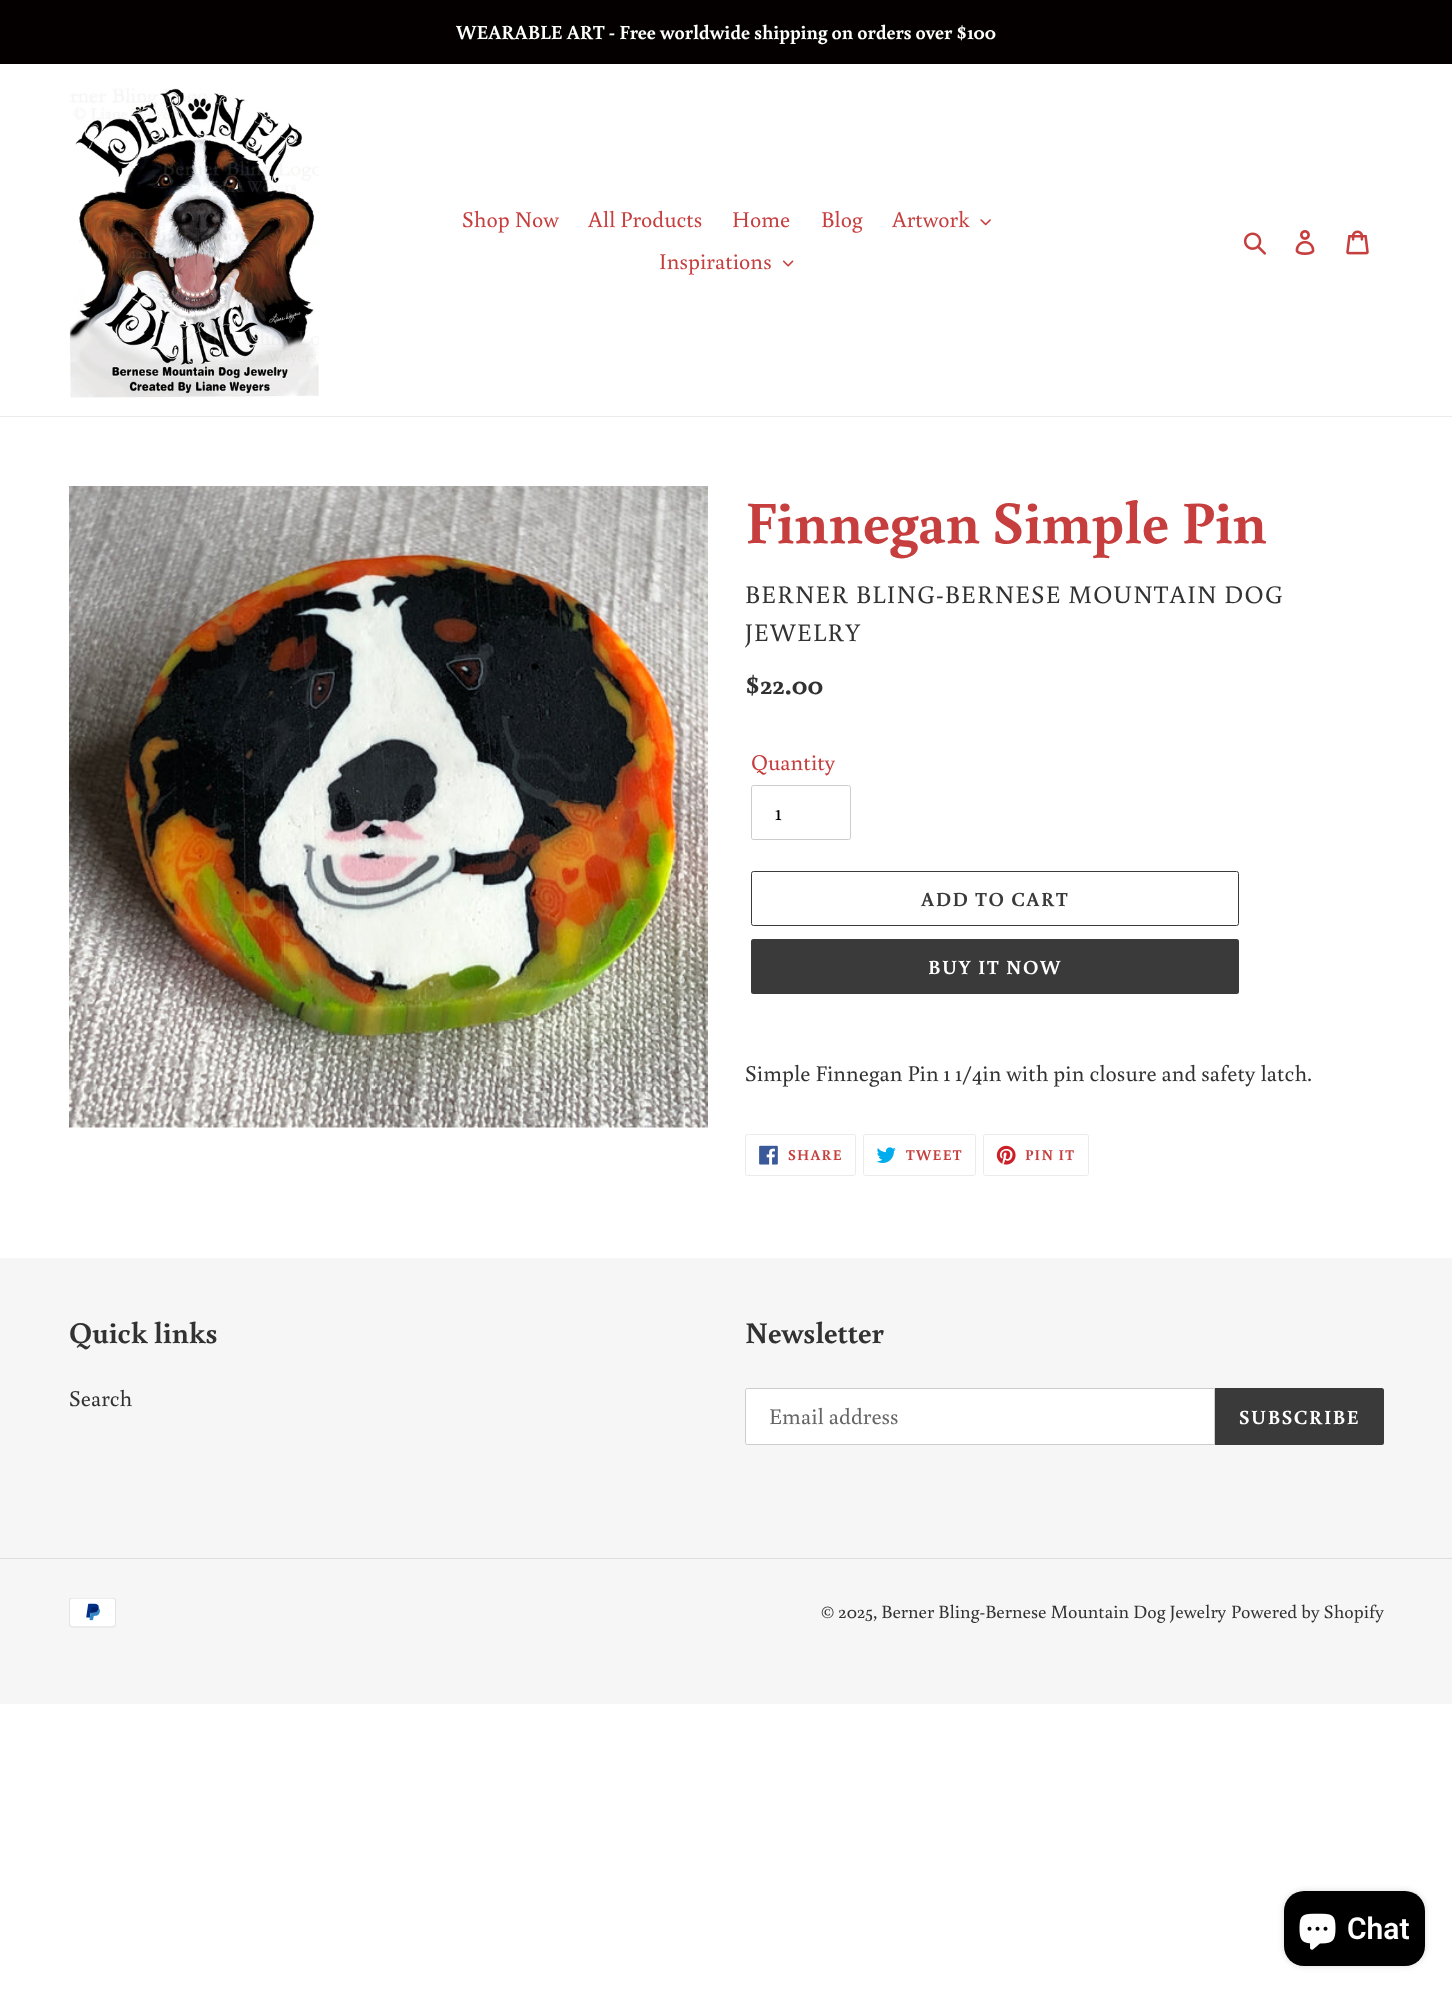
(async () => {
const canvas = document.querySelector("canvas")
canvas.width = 1452
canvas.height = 1992
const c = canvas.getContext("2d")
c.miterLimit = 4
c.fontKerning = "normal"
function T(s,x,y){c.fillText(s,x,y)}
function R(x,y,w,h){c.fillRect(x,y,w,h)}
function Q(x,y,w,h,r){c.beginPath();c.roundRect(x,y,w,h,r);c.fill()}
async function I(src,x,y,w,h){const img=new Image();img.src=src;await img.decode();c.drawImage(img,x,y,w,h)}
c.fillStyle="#fff"
R(0,0,1452,1992)
c.fillStyle="#040000"
R(0,0,1452,64)
c.font="bold 20px Buenard"
c.fillStyle="#fff"
T("WEARABLE ART - Free worldwide shipping on orders over $100",456,39)
c.fillStyle="#ebebeb"
R(0,416,1452,1)
await I("1.png",69,88,250,310)
c.font="22.5px Buenard"
c.fillStyle="#c63e3e"
T("Shop Now",462,227)
T("All Products",588,227)
T("Home",732,227)
T("Blog",821,227)
T("Artwork",892,227)
await I("2.png",980,219,11,7)
T("Inspirations",659,269)
await I("3.png",783,260,11,7)
await I("4.png",1243,232,23,23)
await I("5.png",1295,230,20,25)
await I("6.png",1346,230,23,25)
await I("7.png",69,486,639,642)
c.font="bold 60px Buenard"
T("Finnegan Simple Pin",745,543)
c.letterSpacing="1.25px"
c.font="25.3px Buenard"
c.fillStyle="#333232"
T("BERNER BLING-BERNESE MOUNTAIN DOG",745,603)
T("JEWELRY",745,641)
c.letterSpacing="0px"
c.font="bold 28px Buenard"
T("$22.00",745,694)
c.font="22.5px Buenard"
c.fillStyle="#c63e3e"
T("Quantity",751,770)
c.beginPath()
c.roundRect(751.5,785.5,99,54,2)
c.strokeStyle="#ccc"
c.stroke()
c.fillStyle="#000"
T("1",775,820)
c.beginPath()
c.roundRect(751.5,871.5,487,54,2)
c.strokeStyle="#3a3a3a"
c.stroke()
c.letterSpacing="1.6px"
c.font="bold 20px Buenard"
c.fillStyle="#3a3a3a"
T("ADD TO CART",921,906)
Q(751,939,488,55,2.5)
c.fillStyle="#fff"
T("BUY IT NOW",928,974)
c.letterSpacing="0px"
c.font="22.5px Buenard"
c.fillStyle="#333232"
T("Simple Finnegan Pin 1 1/4in with pin closure and safety latch.",745,1081)
c.beginPath()
c.roundRect(745.5,1134.5,110,41,2)
c.strokeStyle="#ebebeb"
c.stroke()
await I("8.png",759,1145,19,20)
c.letterSpacing="1.25px"
c.font="bold 15px Buenard"
c.fillStyle="#c63e3e"
T("SHARE",788,1160)
c.beginPath()
c.roundRect(863.5,1134.5,112,41,2)
c.stroke()
await I("9.png",876,1147,20,16)
T("TWEET",906,1160)
c.beginPath()
c.roundRect(983.5,1134.5,105,41,2)
c.stroke()
await I("10.png",996,1145,20,20)
T("PIN IT",1025,1160)
c.fillStyle="#f6f6f6"
R(0,1258,1452,446)
c.letterSpacing="0px"
c.font="bold 30px Buenard"
c.fillStyle="#333232"
T("Quick links",69,1343)
c.font="22.5px Buenard"
T("Search",69,1406)
c.font="bold 30px Buenard"
T("Newsletter",745,1343)
c.fillStyle="#fff"
c.beginPath()
c.roundRect(745.5,1388.5,469,56,[2,0,0,2])
c.fill()
c.strokeStyle="#ccc"
c.stroke()
c.font="22.5px Buenard"
c.fillStyle="#666"
T("Email address",769,1424)
c.fillStyle="#3a3a3a"
c.beginPath()
c.roundRect(1215,1388,169,57,[0,2.5,2.5,0])
c.fill()
c.letterSpacing="1.6px"
c.font="bold 20px Buenard"
c.fillStyle="#fff"
T("SUBSCRIBE",1239,1424)
c.fillStyle="#ddd"
R(0,1558,1452,1)
await I("11.png",69,1598,47,30)
c.letterSpacing="0px"
c.font="18.75px Buenard"
c.fillStyle="#333232"
T("© 2025, Berner Bling-Bernese Mountain Dog Jewelry",821,1618)
T("Powered by Shopify",1231,1618)
c.fillStyle="#00000026"
c.filter="blur(3px)"
c.beginPath()
c.roundRect(1284,1891,141,75,20)
c.fill()
c.filter="none"
c.fillStyle="#000"
Q(1284,1891,141,75,20)
await I("12.png",1299,1913,37,37)
c.font="600 30px Roboto"
c.fillStyle="#fff"
T("Chat",1347,1939)
})()
